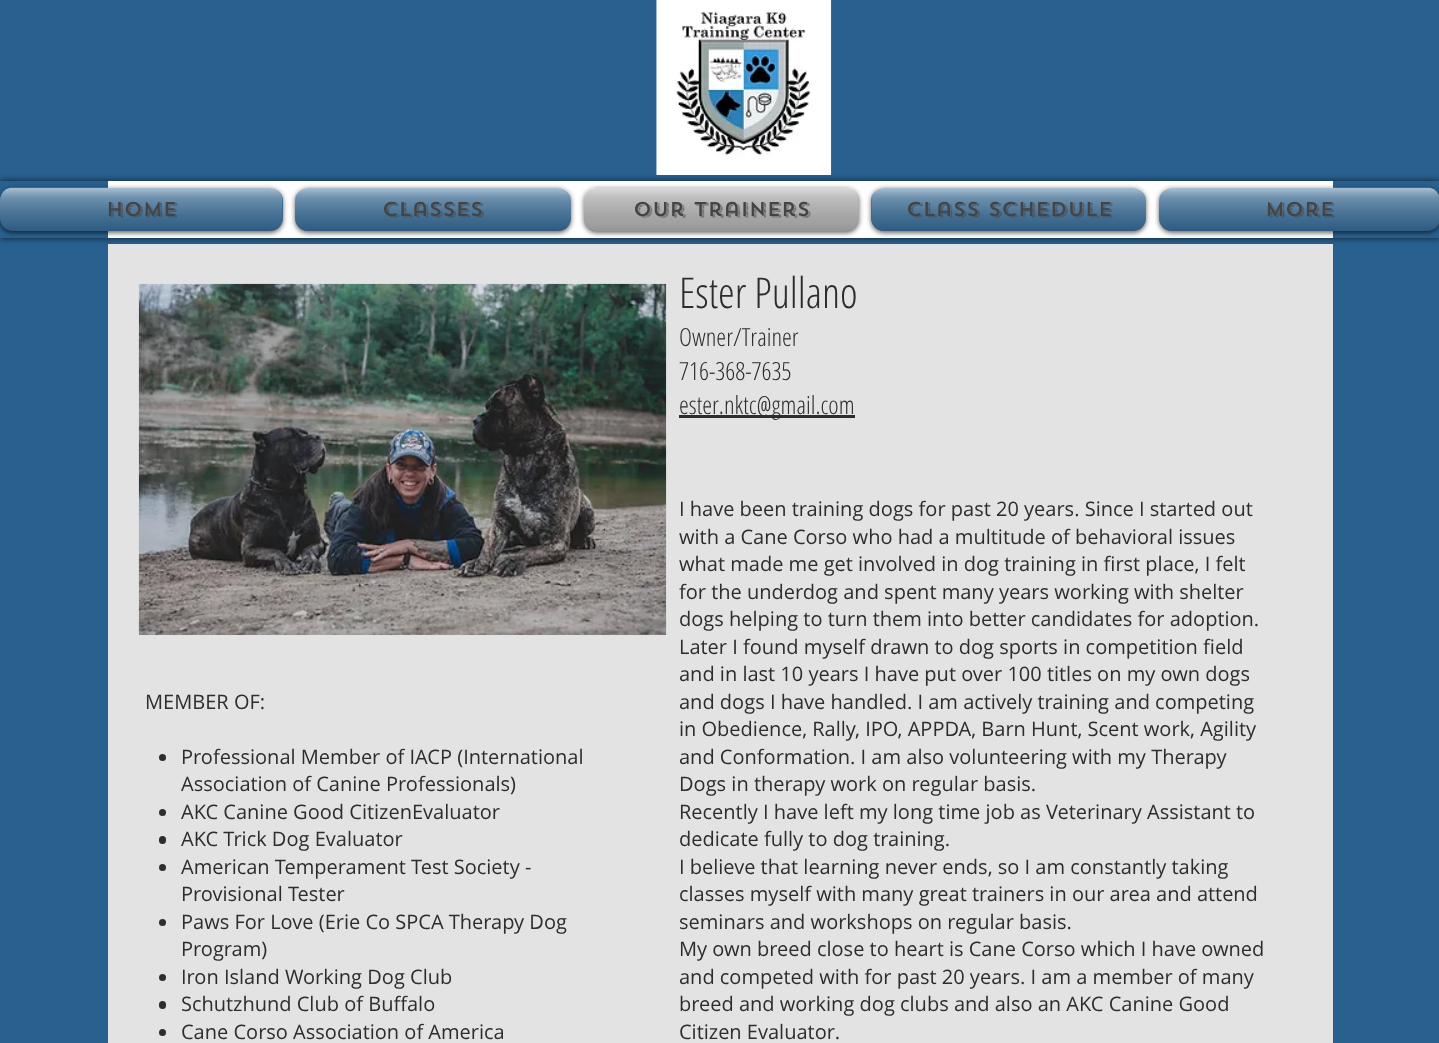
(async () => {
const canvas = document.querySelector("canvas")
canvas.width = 1439
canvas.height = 1043
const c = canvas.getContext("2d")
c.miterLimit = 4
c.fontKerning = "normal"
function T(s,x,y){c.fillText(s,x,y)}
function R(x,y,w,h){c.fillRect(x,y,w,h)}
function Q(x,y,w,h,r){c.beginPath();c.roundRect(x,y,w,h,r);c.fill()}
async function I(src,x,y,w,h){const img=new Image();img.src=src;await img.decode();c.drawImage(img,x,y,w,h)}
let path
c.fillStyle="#28608f"
R(0,0,1439,1043)
await I("1.png",656,0,176,175)
c.save()
path = new Path2D("M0 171h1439v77h-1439zm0 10h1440v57h-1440z")
c.clip(path,"evenodd")
c.fillStyle="#000000b3"
c.filter="blur(3px)"
c.beginPath()
c.rect(0,181,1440,57)
c.fill()
c.filter="none"
c.restore()
c.fillStyle="#fff"
R(108,181,1225,57)
c.fillStyle="#00000099"
c.filter="blur(2.5px)"
c.beginPath()
c.roundRect(0,189,283,44,13)
c.fill()
c.filter="none"
c.fillStyle="#28608f"
Q(0,188,283,43,13)
await I("2.png",0,187,283,44)
await I("3.png",0,189,282,42)
c.font="500 20px 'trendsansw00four'"
c.fillStyle="#444"
T("Home",106,216)
c.fillStyle="#00000099"
c.filter="blur(2.5px)"
c.beginPath()
c.roundRect(295,189,276,44,13)
c.fill()
c.filter="none"
c.fillStyle="#28608f"
Q(295,188,276,43,13)
await I("4.png",295,188,276,43)
await I("5.png",295,189,276,42)
c.fillStyle="#444"
T("Classes",382,216)
c.fillStyle="#00000099"
c.filter="blur(2.5px)"
c.beginPath()
c.roundRect(584,189,275,44,13)
c.fill()
c.filter="none"
c.fillStyle="#a9a9a9"
Q(584,188,275,43,13)
await I("6.png",584,188,275,43)
await I("7.png",584,189,275,42)
c.fillStyle="#444"
T("Our Trainers",633,216)
c.fillStyle="#00000099"
c.filter="blur(2.5px)"
c.beginPath()
c.roundRect(871,189,275,44,13)
c.fill()
c.filter="none"
c.fillStyle="#28608f"
Q(871,188,275,43,13)
await I("8.png",871,188,275,43)
await I("9.png",871,189,275,42)
c.fillStyle="#444"
T("Class Schedule",906,216)
c.fillStyle="#00000099"
c.filter="blur(2.5px)"
c.beginPath()
c.roundRect(1159,189,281,44,13)
c.fill()
c.filter="none"
c.fillStyle="#28608f"
Q(1159,188,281,43,13)
await I("10.png",1159,187,280,44)
await I("11.png",1159,189,280,42)
c.fillStyle="#444"
T("More",1265,216)
c.fillStyle="#e3e3e3"
R(108,244,1225,799)
await I("12.png",138,283,529,352)
c.font="300 42.5px Open Sans Condensed"
c.fillStyle="#2d2d2d"
T("Ester Pullano",679,308)
c.font="300 25px Open Sans Condensed"
T("Owner/Trainer",679,346)
T("716-368-7635",679,380)
R(679,415,176,3)
T("ester.nktc@gmail.com",679,414)
c.font="20px Open Sans"
T("MEMBER OF:",145,709)
c.beginPath()
c.arc(162.5,757.5,3.5,0,7)
c.fill()
T("Professional Member of IACP (International",181,764)
T("Association of Canine Professionals)",181,791)
c.beginPath()
c.arc(162.5,812.5,3.5,0,7)
c.fill()
T("AKC Canine Good CitizenEvaluator",181,819)
Q(159,836,7,8,3.5)
T("AKC Trick Dog Evaluator",181,846)
c.beginPath()
c.arc(162.5,867.5,3.5,0,7)
c.fill()
T("American Temperament Test Society -",181,874)
T("Provisional Tester",181,901)
c.beginPath()
c.arc(162.5,922.5,3.5,0,7)
c.fill()
T("Paws For Love (Erie Co SPCA Therapy Dog",181,929)
T("Program)",181,956)
c.beginPath()
c.arc(162.5,977.5,3.5,0,7)
c.fill()
T("Iron Island Working Dog Club",181,984)
Q(159,1001,7,8,3.5)
T("Schutzhund Club of Buffalo",181,1011)
c.beginPath()
c.arc(162.5,1032.5,3.5,0,7)
c.fill()
T("Cane Corso Association of America",181,1039)
T("I have been training dogs for past 20 years. Since I started out",679,516)
T("with a Cane Corso who had a multitude of behavioral issues",679,544)
T("what made me get involved in dog training in first place, I felt",679,571)
T("for the underdog and spent many years working with shelter",679,599)
T("dogs helping to turn them into better candidates for adoption.",679,626)
T("Later I found myself drawn to dog sports in competition field",679,654)
T("and in last 10 years I have put over 100 titles on my own dogs",679,681)
T("and dogs I have handled. I am actively training and competing",679,709)
T("in Obedience, Rally, IPO, APPDA, Barn Hunt, Scent work, Agility",679,736)
T("and Conformation. I am also volunteering with my Therapy",679,764)
T("Dogs in therapy work on regular basis.",679,791)
T("Recently I have left my long time job as Veterinary Assistant to",679,819)
T("dedicate fully to dog training.",679,846)
T("I believe that learning never ends, so I am constantly taking",679,874)
T("classes myself with many great trainers in our area and attend",679,901)
T("seminars and workshops on regular basis.",679,929)
T("My own breed close to heart is Cane Corso which I have owned",679,956)
T("and competed with for past 20 years. I am a member of many",679,984)
T("breed and working dog clubs and also an AKC Canine Good",679,1011)
T("Citizen Evaluator.",679,1039)
})()
